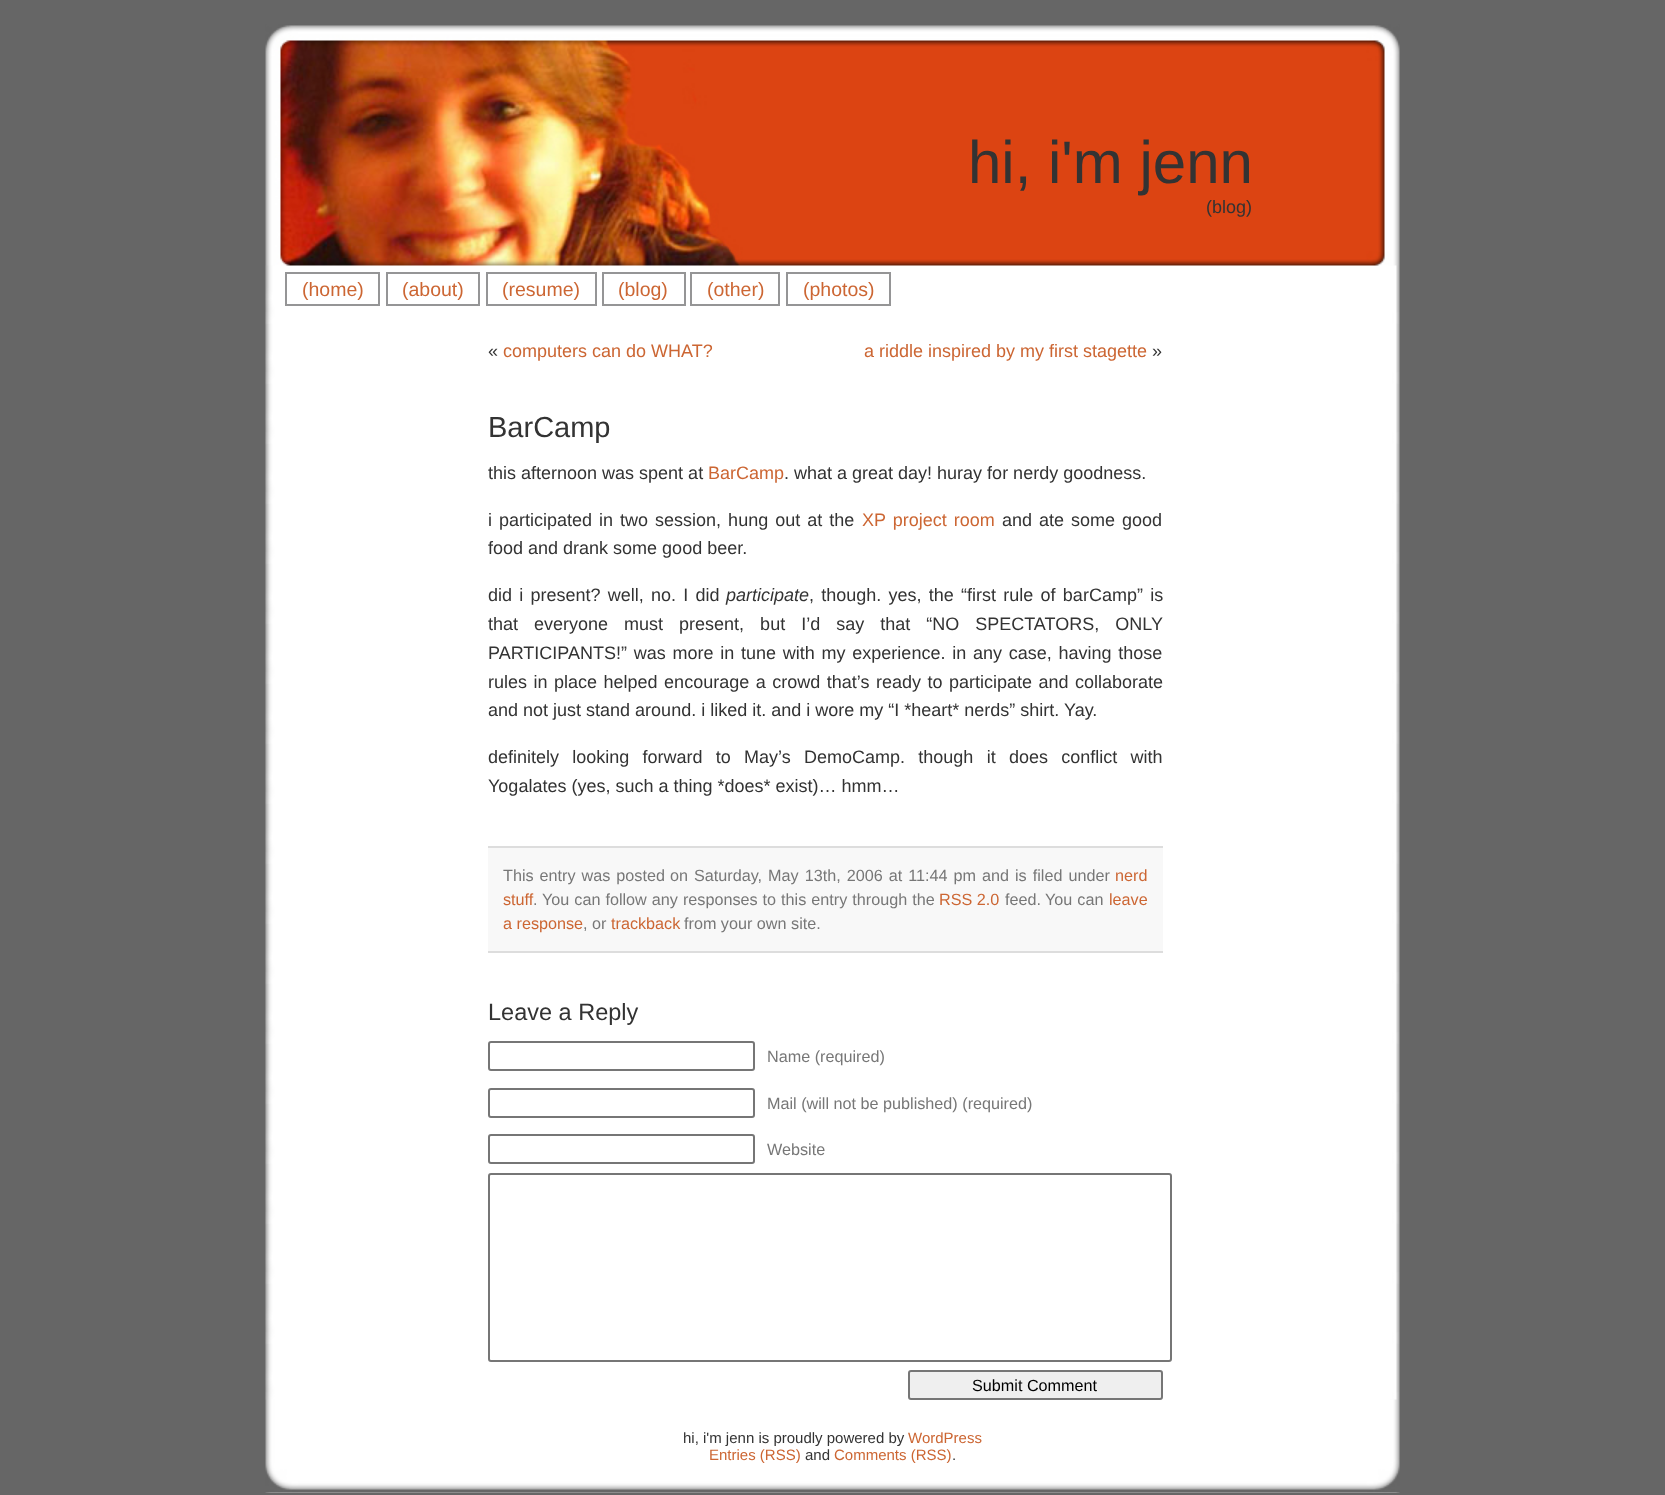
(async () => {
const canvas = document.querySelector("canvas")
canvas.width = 1665
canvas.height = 1495
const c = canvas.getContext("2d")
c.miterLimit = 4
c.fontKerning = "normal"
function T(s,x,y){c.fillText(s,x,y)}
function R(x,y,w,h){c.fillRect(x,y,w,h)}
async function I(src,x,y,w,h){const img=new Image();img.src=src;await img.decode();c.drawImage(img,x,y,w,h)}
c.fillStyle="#666"
R(0,0,1665,1495)
await I("1.png",265,265,1135,1228)
await I("2.png",265,24,1135,242)
c.font="60px Liberation Sans"
c.fillStyle="#333"
T("hi, i'm jenn",968,183)
c.font="18px Liberation Sans"
T("(blog)",1206,213)
c.strokeStyle="#959596"
c.lineWidth=2
c.strokeRect(286,273,93,32)
c.font="19.5px Liberation Sans"
c.fillStyle="#c63"
T("(home)",302,296)
c.strokeRect(387,273,92,32)
T("(about)",402,296)
c.strokeRect(487,273,109,32)
T("(resume)",502,296)
c.strokeRect(603,273,82,32)
T("(blog)",618,296)
c.strokeRect(691,273,88,32)
T("(other)",707,296)
c.strokeRect(787,273,103,32)
T("(photos)",803,296)
c.font="18px Liberation Sans"
c.fillStyle="#333"
T("«",488,357)
c.fillStyle="#c63"
T("computers can do WHAT?",503,357)
T("a riddle inspired by my first stagette",864,357)
c.fillStyle="#333"
T("»",1152,357)
c.font="29px Liberation Sans"
T("BarCamp",488,437)
c.font="18px Liberation Sans"
T("this afternoon was spent at",488,479)
c.fillStyle="#c63"
T("BarCamp",708,479)
c.fillStyle="#333"
T(". what a great day! huray for nerdy goodness.",784,479)
c.wordSpacing="2px"
T("i participated in two session, hung out at the",488,526)
c.fillStyle="#c63"
T("XP project room",862,526)
c.fillStyle="#333"
T("and ate some good",1002,526)
c.wordSpacing="0px"
T("food and drank some good beer.",488,554)
c.wordSpacing="2.25px"
T("did i present? well, no. I did",488,601)
c.wordSpacing="0px"
c.font="italic 18px Liberation Sans"
T("participate",726,601)
c.wordSpacing="2.25px"
c.font="18px Liberation Sans"
T(", though. yes, the “first rule of barCamp” is",809,601)
c.wordSpacing="11px"
T("that everyone must present, but I’d say that “NO SPECTATORS, ONLY",488,630)
c.wordSpacing="1.75px"
T("PARTICIPANTS!” was more in tune with my experience. in any case, having those",488,659)
c.wordSpacing="1.5px"
T("rules in place helped encourage a crowd that’s ready to participate and collaborate",488,688)
c.wordSpacing="0px"
T("and not just stand around. i liked it. and i wore my “I *heart* nerds” shirt. Yay.",488,716)
c.wordSpacing="8.25px"
T("definitely looking forward to May’s DemoCamp. though it does conflict with",488,763)
c.wordSpacing="0px"
T("Yogalates (yes, such a thing *does* exist)… hmm…",488,792)
c.fillStyle="#f8f8f8"
R(488,848,675,103)
c.fillStyle="#ddd"
R(488,846,675,2)
R(488,951,675,2)
c.wordSpacing="1.5px"
c.font="16.2px Liberation Sans"
c.fillStyle="#777"
T("This entry was posted",503,881)
T("on Saturday, May 13th, 2006 at 11:44 pm",670,881)
T("and is filed under",982,881)
c.wordSpacing="0px"
c.fillStyle="#c63"
T("nerd",1115,881)
T("stuff",503,905)
c.fillStyle="#777"
T(".",533,905)
c.wordSpacing="0.5px"
T("You can follow any responses to this entry through the",542,905)
c.wordSpacing="0px"
c.fillStyle="#c63"
T("RSS 2.0",939,905)
c.fillStyle="#777"
T("feed.",1005,905)
c.wordSpacing="0.5px"
T("You can",1045,905)
c.wordSpacing="0px"
c.fillStyle="#c63"
T("leave",1109,905)
T("a response",503,929)
c.fillStyle="#777"
T(", or",583,929)
c.fillStyle="#c63"
T("trackback",611,929)
c.fillStyle="#777"
T("from your own site.",684,929)
c.font="23.5px Liberation Sans"
c.fillStyle="#333"
T("Leave a Reply",488,1020)
c.beginPath()
c.roundRect(489,1042,265,28,2)
c.strokeStyle="#767676"
c.stroke()
c.font="16.2px Liberation Sans"
c.fillStyle="#777"
T("Name (required)",767,1062)
c.beginPath()
c.roundRect(489,1089,265,28,2)
c.stroke()
T("Mail (will not be published) (required)",767,1109)
c.beginPath()
c.roundRect(489,1135,265,28,2)
c.stroke()
T("Website",767,1155)
c.beginPath()
c.roundRect(489,1174,682,187,2)
c.stroke()
await I("3.png",265,1399,1135,94)
c.fillStyle="#efefef"
c.beginPath()
c.roundRect(909,1371,253,28,2)
c.fill()
c.stroke()
c.fillStyle="#000"
T("Submit Comment",972,1391)
c.font="15px Liberation Sans"
c.fillStyle="#333"
T("hi, i'm jenn is proudly powered by",683,1443)
c.fillStyle="#c63"
T("WordPress",908,1443)
T("Entries (RSS)",709,1460)
c.fillStyle="#333"
T("and",805,1460)
c.fillStyle="#c63"
T("Comments (RSS)",834,1460)
c.fillStyle="#333"
T(".",952,1460)
})()
